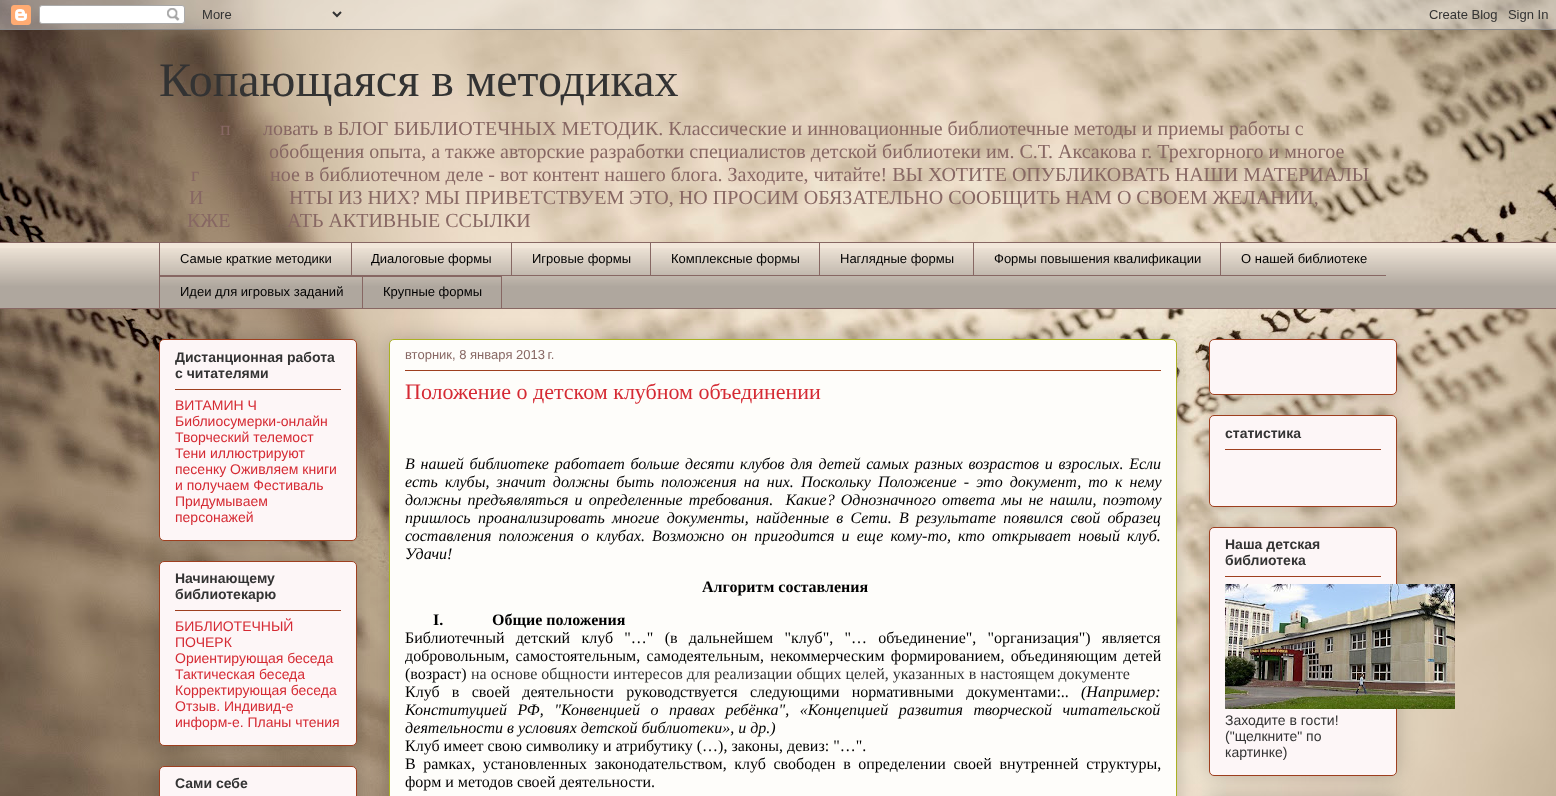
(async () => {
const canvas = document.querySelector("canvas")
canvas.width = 1556
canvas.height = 796
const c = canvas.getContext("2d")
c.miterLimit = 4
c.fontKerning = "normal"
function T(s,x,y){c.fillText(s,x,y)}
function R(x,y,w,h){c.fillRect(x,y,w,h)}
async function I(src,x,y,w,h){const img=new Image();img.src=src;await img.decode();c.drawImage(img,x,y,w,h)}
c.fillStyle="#fff"
R(0,0,1556,796)
await I("1.png",0,0,1556,796)
await I("2.png",0,0,1556,30)
c.font="48px Liberation Serif"
c.fillStyle="#333"
T("Копающаяся в методиках",159,96)
c.font="20px Liberation Serif"
c.fillStyle="#876763"
T("п",220,135)
T("ловать в БЛОГ БИБЛИОТЕЧНЫХ МЕТОДИК. Классические и инновационные библиотечные методы и приемы работы с",263,135)
T("обобщения опыта, а также авторские разработки специалистов детской библиотеки им. С.Т. Аксакова г. Трехгорного и многое",269,158)
T("г",191,181)
T("ное в библиотечном деле - вот контент нашего блога. Заходите, читайте! ВЫ ХОТИТЕ ОПУБЛИКОВАТЬ НАШИ МАТЕРИАЛЫ",270,181)
T("И",189,204)
T("НТЫ ИЗ НИХ? МЫ ПРИВЕТСТВУЕМ ЭТО, НО ПРОСИМ ОБЯЗАТЕЛЬНО СООБЩИТЬ НАМ О СВОЕМ ЖЕЛАНИИ,",289,204)
T("КЖЕ",187,227)
T("АТЬ АКТИВНЫЕ ССЫЛКИ",287,227)
c.fillStyle="#f2e7da"
R(0,243,1556,65)
await I("3.png",0,248,1556,60)
c.fillStyle="#876763"
R(0,242,1556,1)
R(159,275,1227,1)
R(159,242,1,34)
c.font="13px Liberation Sans"
c.fillStyle="#000"
T("Самые краткие методики",180,263)
c.fillStyle="#876763"
R(351,242,1,34)
c.fillStyle="#000"
T("Диалоговые формы",371,263)
c.fillStyle="#876763"
R(511,242,1,34)
c.fillStyle="#000"
T("Игровые формы",532,263)
c.fillStyle="#876763"
R(650,242,1,34)
c.fillStyle="#000"
T("Комплексные формы",671,263)
c.fillStyle="#876763"
R(819,242,1,34)
c.fillStyle="#000"
T("Наглядные формы",840,263)
c.fillStyle="#876763"
R(973,242,1,34)
c.fillStyle="#000"
T("Формы повышения квалификации",994,263)
c.fillStyle="#876763"
R(1220,242,1,34)
c.fillStyle="#000"
T("О нашей библиотеке",1241,263)
c.fillStyle="#876763"
R(159,276,203,1)
R(159,276,1,33)
c.fillStyle="#000"
T("Идеи для игровых заданий",180,296)
c.strokeStyle="#876763"
c.strokeRect(362.5,276.5,139,32)
T("Крупные формы",383,296)
c.fillStyle="#876763"
R(0,308,1556,1)
c.fillStyle="#00000033"
c.filter="blur(10px)"
c.beginPath()
c.roundRect(159,339,198,202,5)
c.fill()
c.filter="none"
c.fillStyle="#fdf6f7"
c.beginPath()
c.roundRect(159.5,339.5,197,201,4.5)
c.fill()
c.strokeStyle="#9e3f1f"
c.stroke()
c.font="bold 14px Liberation Sans"
c.fillStyle="#333"
T("Дистанционная работа",175,362)
T("с читателями",175,378)
c.fillStyle="#9e3f1f"
R(175,389,166,1)
c.font="14px Liberation Sans"
c.fillStyle="#d52a33"
T("ВИТАМИН Ч",175,410)
T("Библиосумерки-онлайн",175,426)
T("Творческий телемост",175,442)
T("Тени иллюстрируют",175,458)
T("песенку Оживляем книги",175,474)
T("и получаем Фестиваль",175,490)
T("Придумываем",175,506)
T("персонажей",175,522)
c.fillStyle="#00000033"
c.filter="blur(10px)"
c.beginPath()
c.roundRect(159,561,198,185,5)
c.fill()
c.filter="none"
c.fillStyle="#fdf6f7"
c.beginPath()
c.roundRect(159.5,561.5,197,184,4.5)
c.fill()
c.stroke()
c.font="bold 14px Liberation Sans"
c.fillStyle="#333"
T("Начинающему",175,583)
T("библиотекарю",175,599)
c.fillStyle="#9e3f1f"
R(175,610,166,1)
c.font="14px Liberation Sans"
c.fillStyle="#d52a33"
T("БИБЛИОТЕЧНЫЙ",175,631)
T("ПОЧЕРК",175,647)
T("Ориентирующая беседа",175,663)
T("Тактическая беседа",175,679)
T("Корректирующая беседа",175,695)
T("Отзыв. Индивид-е",175,711)
T("информ-е. Планы чтения",175,727)
c.fillStyle="#00000033"
c.filter="blur(10px)"
c.beginPath()
c.roundRect(159,766,198,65,5)
c.fill()
c.filter="none"
c.fillStyle="#fdf6f7"
c.beginPath()
c.roundRect(159.5,766.5,197,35,4.5)
c.fill()
c.stroke()
c.font="bold 14px Liberation Sans"
c.fillStyle="#333"
T("Сами себе",175,788)
c.fillStyle="#00000033"
c.filter="blur(10px)"
c.beginPath()
c.roundRect(389,339,788,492,5)
c.fill()
c.filter="none"
c.fillStyle="#fefdfa"
c.beginPath()
c.roundRect(389.5,339.5,787,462,4.5)
c.fill()
c.strokeStyle="#aab123"
c.stroke()
c.font="13px Liberation Sans"
c.fillStyle="#876763"
T("вторник, 8 января 2013 г.",405,359)
c.fillStyle="#9e3f1f"
R(405,370,756,1)
c.font="22px Liberation Serif"
c.fillStyle="#d52a33"
T("Положение о детском клубном объединении",405,399)
c.wordSpacing="1.75px"
c.font="italic 16px Liberation Serif"
c.fillStyle="#000"
T("В нашей библиотеке работает больше десяти клубов для детей самых разных возрастов и взрослых. Если",405,469)
c.wordSpacing="3.1px"
T("есть клубы, значит должны быть положения на них. Поскольку Положение - это документ, то к нему",405,487)
c.wordSpacing="2.1px"
T("должны предъявляться и определенные требования.  Какие? Однозначного ответа мы не нашли, поэтому",405,505)
c.wordSpacing="3.25px"
T("пришлось проанализировать многие документы, найденные в Сети. В результате появился свой образец",405,523)
c.wordSpacing="3.1px"
T("составления положения о клубах. Возможно он пригодится и еще кому-то, кто открывает новый клуб.",405,541)
c.wordSpacing="0px"
T("Удачи!",405,559)
c.font="bold 16px Liberation Serif"
T("Алгоритм составления",702,592)
T("I.",433,625)
T("Общие положения",492,625)
c.wordSpacing="7.25px"
c.font="16px Liberation Serif"
T("Библиотечный детский клуб \"…\" (в дальнейшем \"клуб\", \"… объединение\", \"организация\") является",405,643)
c.wordSpacing="2.25px"
T("добровольным, самостоятельным, самодеятельным, некоммерческим формированием, объединяющим детей",405,661)
c.wordSpacing="0px"
T("(возраст)",405,679)
c.fillStyle="#333"
T("на основе общности интересов для реализации общих целей, указанных в настоящем документе",471,679)
c.wordSpacing="8.25px"
c.fillStyle="#000"
T("Клуб в своей деятельности руководствуется следующими нормативными документами:..",405,697)
c.wordSpacing="0px"
c.font="italic 16px Liberation Serif"
T("(Например:",1081,697)
c.wordSpacing="6.5px"
T("Конституцией РФ, \"Конвенцией о правах ребёнка\", «Концепцией развития творческой читательской",405,715)
c.wordSpacing="0px"
T("деятельности в условиях детской библиотеки», и др.)",405,733)
c.font="16px Liberation Serif"
T("Клуб имеет свою символику и атрибутику (…), законы, девиз: \"…\".",405,751)
c.wordSpacing="3.6px"
T("В рамках, установленных законодательством, клуб свободен в определении своей внутренней структуры,",405,769)
c.wordSpacing="0px"
T("форм и методов своей деятельности.",405,787)
c.fillStyle="#00000033"
c.filter="blur(10px)"
c.beginPath()
c.roundRect(1209,339,188,56,5)
c.fill()
c.filter="none"
c.fillStyle="#fdf6f7"
c.beginPath()
c.roundRect(1209.5,339.5,187,55,4.5)
c.fill()
c.strokeStyle="#9e3f1f"
c.stroke()
c.fillStyle="#00000033"
c.filter="blur(10px)"
c.beginPath()
c.roundRect(1209,415,188,92,5)
c.fill()
c.filter="none"
c.fillStyle="#fdf6f7"
c.beginPath()
c.roundRect(1209.5,415.5,187,91,4.5)
c.fill()
c.stroke()
c.font="bold 14px Liberation Sans"
c.fillStyle="#333"
T("статистика",1225,438)
c.fillStyle="#9e3f1f"
R(1225,449,156,1)
c.fillStyle="#00000033"
c.filter="blur(10px)"
c.beginPath()
c.roundRect(1209,527,188,249,5)
c.fill()
c.filter="none"
c.fillStyle="#fdf6f7"
c.beginPath()
c.roundRect(1209.5,527.5,187,248,4.5)
c.fill()
c.stroke()
c.fillStyle="#333"
T("Наша детская",1225,549)
T("библиотека",1225,565)
c.fillStyle="#9e3f1f"
R(1225,576,156,1)
await I("4.png",1225,584,230,125)
c.font="14px Liberation Sans"
c.fillStyle="#333"
T("Заходите в гости!",1225,725)
T("(\"щелкните\" по",1225,741)
T("картинке)",1225,757)
c.fillStyle="#00000033"
c.filter="blur(10px)"
c.beginPath()
c.roundRect(1209,796,188,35,5)
c.fill()
c.filter="none"
})()
